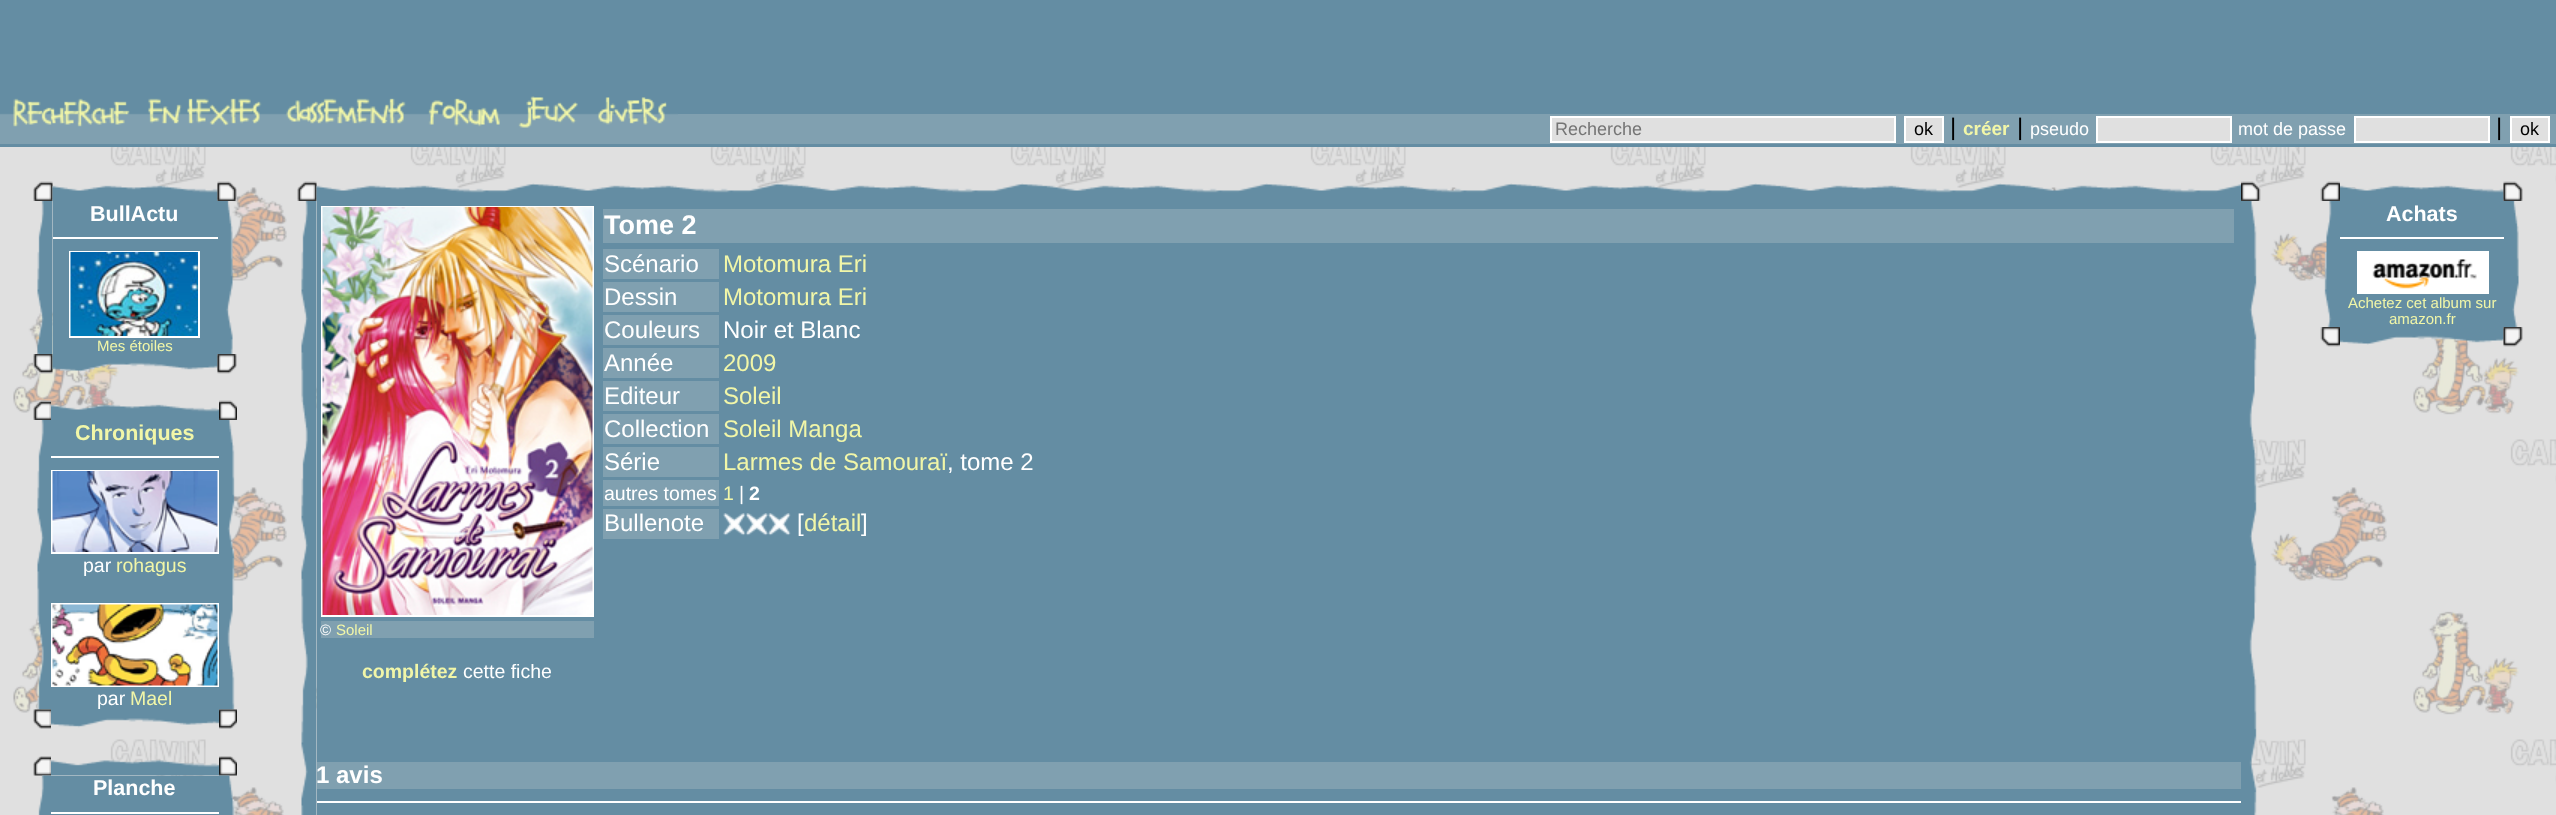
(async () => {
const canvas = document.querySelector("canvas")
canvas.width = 2556
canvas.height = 815
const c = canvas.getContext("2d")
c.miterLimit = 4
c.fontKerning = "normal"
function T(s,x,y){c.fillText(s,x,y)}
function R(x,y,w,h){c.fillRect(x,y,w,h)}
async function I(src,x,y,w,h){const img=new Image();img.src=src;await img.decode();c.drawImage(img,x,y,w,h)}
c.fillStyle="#e0e0e0"
R(0,0,2556,815)
await I("1.png",13,147,2543,668)
c.fillStyle="#648da3"
R(0,0,2556,111)
c.fillStyle="#80a0b0"
R(0,114,2556,30)
await I("2.png",0,98,138,29)
await I("3.png",138,98,135,28)
await I("4.png",273,98,144,26)
await I("5.png",417,98,93,29)
await I("6.png",510,96,78,32)
await I("7.png",588,97,90,28)
c.fillStyle="#648da3"
R(678,111,1878,3)
R(0,144,2556,3)
c.fillStyle="#e0e0e0"
c.beginPath()
c.rect(1551,117,344,25)
c.fill()
c.strokeStyle="#fff"
c.lineWidth=2
c.stroke()
c.font="18px Liberation Sans"
c.fillStyle="#757575"
T("Recherche",1555,135)
c.fillStyle="#e0e0e0"
c.beginPath()
c.rect(1905,117,38,25)
c.fill()
c.stroke()
c.fillStyle="#000"
T("ok",1914,135)
c.font="24px Liberation Sans"
T("|",1950,135)
c.font="bold 19px Liberation Sans"
c.fillStyle="#f1f6a8"
T("créer",1963,135)
c.font="24px Liberation Sans"
c.fillStyle="#000"
T("|",2017,135)
c.font="18px Liberation Sans"
c.fillStyle="#fff"
T("pseudo",2030,135)
c.fillStyle="#e0e0e0"
c.beginPath()
c.rect(2097,117,134,25)
c.fill()
c.stroke()
c.fillStyle="#fff"
T("mot de passe",2238,135)
c.fillStyle="#e0e0e0"
c.beginPath()
c.rect(2355,117,134,25)
c.fill()
c.stroke()
c.font="24px Liberation Sans"
c.fillStyle="#000"
T("|",2496,135)
c.fillStyle="#e0e0e0"
c.beginPath()
c.rect(2511,117,38,25)
c.fill()
c.stroke()
c.font="18px Liberation Sans"
c.fillStyle="#000"
T("ok",2520,135)
await I("8.png",33,181,20,20)
await I("9.png",52,185,166,16)
await I("10.png",217,181,20,20)
await I("11.png",37,201,16,153)
c.fillStyle="#648da3"
R(53,201,165,153)
c.font="bold 21.5px Liberation Sans"
c.fillStyle="#fff"
T("BullActu",90,221)
R(53,237,165,2)
c.strokeRect(70,252,129,85)
await I("12.png",70,252,128,84)
c.font="15px Liberation Sans"
c.fillStyle="#f1f6a8"
T("Mes étoiles",97,351)
await I("13.png",218,201,15,153)
await I("14.png",33,354,20,20)
await I("15.png",52,354,166,18)
await I("16.png",217,354,20,20)
await I("17.png",33,400,18,20)
await I("18.png",51,404,168,16)
await I("19.png",219,400,18,20)
await I("20.png",37,420,14,290)
c.fillStyle="#648da3"
R(51,420,168,290)
c.font="bold 21.5px Liberation Sans"
c.fillStyle="#f1f6a8"
T("Chroniques",75,440)
c.fillStyle="#fff"
R(51,456,168,2)
c.strokeRect(52,471,166,82)
await I("21.png",52,471,166,81)
c.font="19.5px Liberation Sans"
T("par",83,572)
c.fillStyle="#f1f6a8"
T("rohagus",116,572)
c.strokeRect(52,604,166,82)
await I("22.png",52,604,166,82)
c.fillStyle="#fff"
T("par",97,705)
c.fillStyle="#f1f6a8"
T("Mael",130,705)
await I("23.png",219,420,16,290)
await I("24.png",33,709,18,20)
await I("25.png",51,710,168,18)
await I("26.png",219,709,18,20)
await I("27.png",33,756,18,20)
await I("28.png",51,760,168,16)
await I("29.png",219,756,18,20)
await I("30.png",38,775,13,40)
c.fillStyle="#648da3"
R(51,776,168,39)
c.font="bold 21.5px Liberation Sans"
c.fillStyle="#fff"
T("Planche",93,795)
R(51,812,168,2)
await I("31.png",219,775,16,40)
await I("32.png",297,181,20,20)
await I("33.png",316,183,1925,18)
await I("34.png",2241,181,20,20)
await I("35.png",301,201,16,614)
c.fillStyle="#648da3"
R(317,201,1924,614)
c.fillStyle="#80a0b0"
R(603,209,1631,34)
c.font="bold 27px Liberation Sans"
c.fillStyle="#fff"
T("Tome 2",604,234)
c.fillStyle="#80a0b0"
R(603,249,116,30)
c.font="24px Liberation Sans"
c.fillStyle="#fff"
T("Scénario",604,272)
c.fillStyle="#f1f6a8"
T("Motomura Eri",723,272)
c.fillStyle="#80a0b0"
R(603,282,116,30)
c.fillStyle="#fff"
T("Dessin",604,305)
c.fillStyle="#f1f6a8"
T("Motomura Eri",723,305)
c.fillStyle="#80a0b0"
R(603,315,116,30)
c.fillStyle="#fff"
T("Couleurs",604,338)
T("Noir et Blanc",723,338)
c.fillStyle="#80a0b0"
R(603,348,116,30)
c.fillStyle="#fff"
T("Année",604,371)
c.fillStyle="#f1f6a8"
T("2009",723,371)
c.fillStyle="#80a0b0"
R(603,381,116,30)
c.fillStyle="#fff"
T("Editeur",604,404)
c.fillStyle="#f1f6a8"
T("Soleil",723,404)
c.fillStyle="#80a0b0"
R(603,414,116,30)
c.fillStyle="#fff"
T("Collection",604,437)
c.fillStyle="#f1f6a8"
T("Soleil Manga",723,437)
c.fillStyle="#80a0b0"
R(603,447,116,30)
c.fillStyle="#fff"
T("Série",604,470)
c.fillStyle="#f1f6a8"
T("Larmes de Samouraï",723,470)
c.fillStyle="#fff"
T(", tome 2",947,470)
c.fillStyle="#80a0b0"
R(603,480,116,26)
c.font="19.5px Liberation Sans"
c.fillStyle="#fff"
T("autres tomes",604,500)
c.fillStyle="#f1f6a8"
T("1",723,500)
c.fillStyle="#fff"
T("|",739,500)
c.font="bold 19.5px Liberation Sans"
T("2",749,500)
c.fillStyle="#80a0b0"
R(603,509,116,30)
c.font="24px Liberation Sans"
c.fillStyle="#fff"
T("Bullenote",604,531)
await I("36.png",723,513,23,23)
await I("37.png",746,513,22,23)
await I("38.png",768,513,23,23)
T("[",797,531)
c.fillStyle="#f1f6a8"
T("détail",804,531)
c.fillStyle="#fff"
T("]",861,531)
c.strokeRect(322,207,271,409)
await I("39.png",322,207,271,408)
c.fillStyle="#80a0b0"
R(321,621,273,17)
c.font="15px Liberation Sans"
c.fillStyle="#fff"
T("©",320,635)
c.fillStyle="#f1f6a8"
T("Soleil",336,635)
c.font="bold 19.5px Liberation Sans"
T("complétez",362,678)
c.font="19.5px Liberation Sans"
c.fillStyle="#fff"
T("cette fiche",463,678)
c.fillStyle="#80a0b0"
R(317,762,1924,27)
c.font="bold 24px Liberation Sans"
c.fillStyle="#fff"
T("1 avis",316,783)
R(317,801,1924,2)
await I("40.png",2241,201,16,614)
await I("41.png",2320,181,20,20)
await I("42.png",2340,185,164,16)
await I("10.png",2503,181,20,20)
await I("43.png",2324,201,16,126)
c.fillStyle="#648da3"
R(2340,201,164,126)
c.font="bold 21.5px Liberation Sans"
c.fillStyle="#fff"
T("Achats",2386,221)
R(2340,237,164,2)
c.strokeRect(2358,252,130,41)
await I("44.png",2359,253,128,39)
c.font="15px Liberation Sans"
c.fillStyle="#f1f6a8"
T("Achetez cet album sur",2348,308)
T("amazon.fr",2389,324)
await I("45.png",2504,201,15,126)
await I("46.png",2320,327,20,20)
await I("47.png",2340,327,164,18)
await I("48.png",2503,327,20,20)
})()
